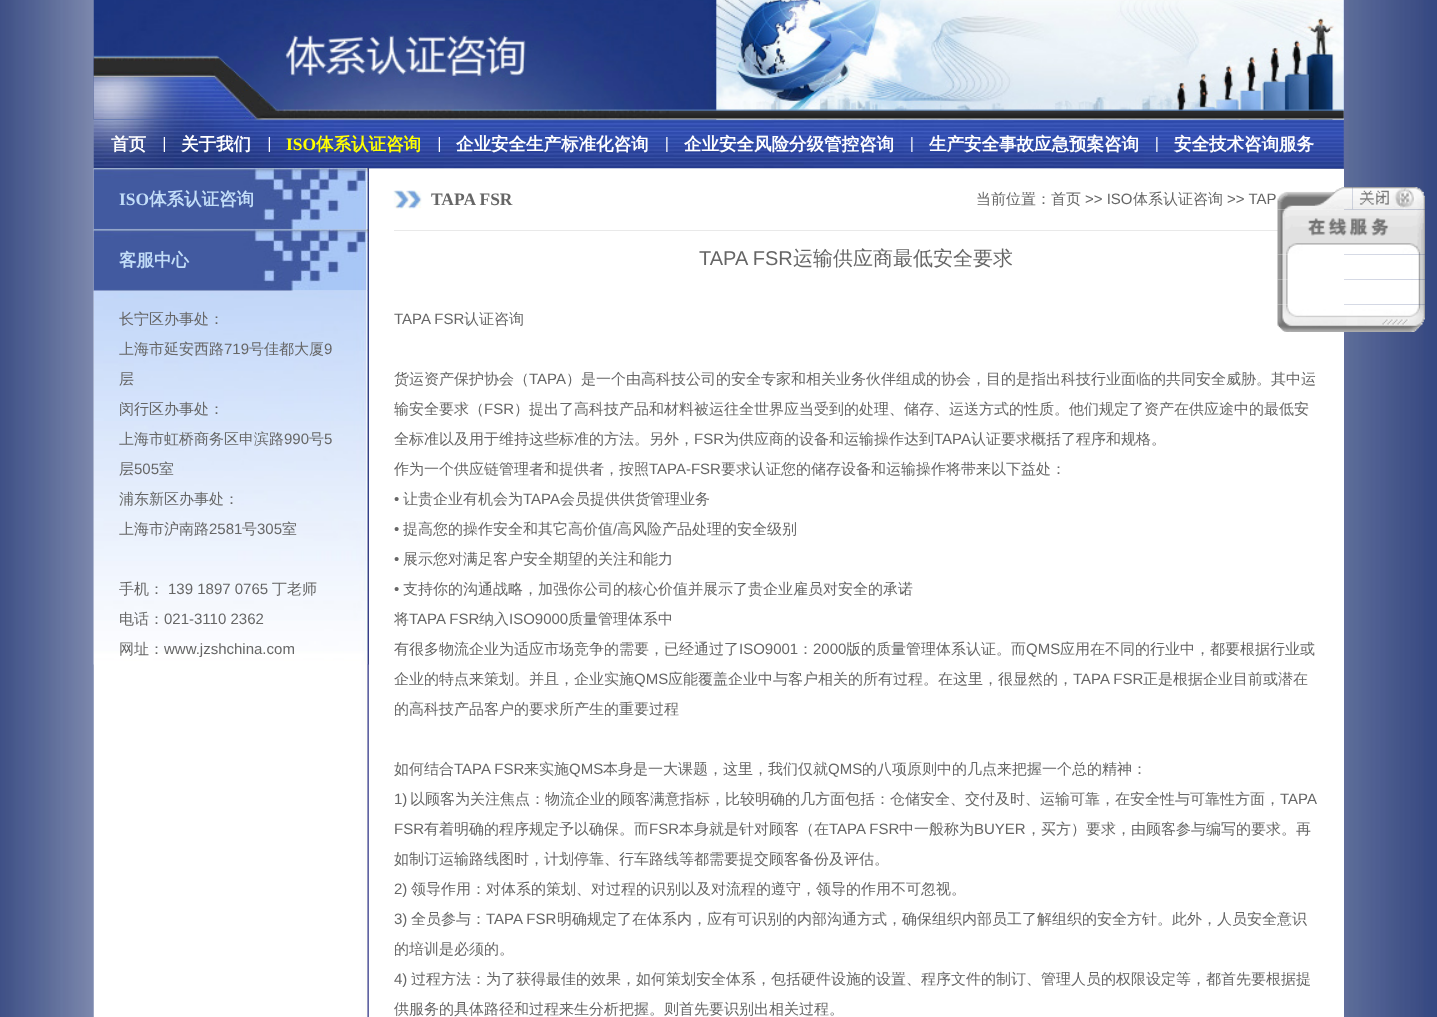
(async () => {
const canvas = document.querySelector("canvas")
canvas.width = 1437
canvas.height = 1017
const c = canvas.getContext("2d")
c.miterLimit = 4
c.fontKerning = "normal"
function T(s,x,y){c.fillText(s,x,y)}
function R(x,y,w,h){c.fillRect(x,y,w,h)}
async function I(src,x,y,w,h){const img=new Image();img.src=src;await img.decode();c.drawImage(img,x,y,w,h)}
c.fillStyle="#fff"
R(0,0,1437,1017)
await I("1.png",0,0,1437,1017)
await I("4.png",93,119,1251,50)
c.fillStyle="#6f95de"
R(94,0,1250,120)
await I("2.png",93,0,1251,120)
await I("3.png",93,55,1251,65)
c.font="bold 17.5px WenQuanYi Zen Hei"
c.fillStyle="#fff"
T("首页",111,150)
await I("5.png",163,137,2,15)
T("关于我们",181,150)
await I("6.png",268,137,2,15)
c.font="bold 17.5px Liberation Serif"
c.fillStyle="#ff0"
T("ISO",286,150)
c.font="bold 17.5px WenQuanYi Zen Hei"
T("体系认证咨询",316,150)
await I("7.png",438,137,2,15)
c.fillStyle="#fff"
T("企业安全生产标准化咨询",456,150)
await I("8.png",666,137,2,15)
T("企业安全风险分级管控咨询",684,150)
await I("9.png",911,137,2,15)
T("生产安全事故应急预案咨询",929,150)
await I("10.png",1156,137,2,15)
T("安全技术咨询服务",1174,150)
R(368,169,976,848)
await I("11.png",93,168,276,849)
await I("12.png",93,168,276,62)
c.font="bold 17.5px Liberation Serif"
c.fillStyle="#c2ddf8"
T("ISO",119,205)
c.font="bold 17.5px WenQuanYi Zen Hei"
T("体系认证咨询",149,205)
await I("13.png",93,229,276,62)
T("客服中心",119,266)
await I("14.png",93,290,276,375)
c.font="500 15px WenQuanYi Zen Hei"
c.fillStyle="#666"
T("长宁区办事处：",119,324)
T("上海市延安西路",119,354)
c.font="15px Liberation Sans"
T("719",224,354)
c.font="500 15px WenQuanYi Zen Hei"
T("号佳都大厦",249,354)
c.font="15px Liberation Sans"
T("9",324,354)
c.font="500 15px WenQuanYi Zen Hei"
T("层",119,384)
T("闵行区办事处：",119,414)
T("上海市虹桥商务区申滨路",119,444)
c.font="15px Liberation Sans"
T("990",284,444)
c.font="500 15px WenQuanYi Zen Hei"
T("号",309,444)
c.font="15px Liberation Sans"
T("5",324,444)
c.font="500 15px WenQuanYi Zen Hei"
T("层",119,474)
c.font="15px Liberation Sans"
T("505",134,474)
c.font="500 15px WenQuanYi Zen Hei"
T("室",159,474)
T("浦东新区办事处：",119,504)
T("上海市沪南路",119,534)
c.font="15px Liberation Sans"
T("2581",209,534)
c.font="500 15px WenQuanYi Zen Hei"
T("号",242,534)
c.font="15px Liberation Sans"
T("305",257,534)
c.font="500 15px WenQuanYi Zen Hei"
T("室",282,534)
T("手机：",119,594)
c.font="15px Liberation Sans"
T("139 1897 0765",168,594)
c.font="500 15px WenQuanYi Zen Hei"
T("丁老师",272,594)
T("电话：",119,624)
c.font="15px Liberation Sans"
T("021-3110 2362",164,624)
c.font="500 15px WenQuanYi Zen Hei"
T("网址：",119,654)
c.font="15px Liberation Sans"
T("www.jzshchina.com",164,654)
await I("15.png",393,190,29,19)
c.fillStyle="#e9e9e9"
R(394,230,884,1)
c.font="bold 17.5px Liberation Serif"
c.fillStyle="#666"
T("TAPA FSR",431,205)
c.font="500 15px WenQuanYi Zen Hei"
T("当前位置：首页",976,204)
c.font="15px Liberation Sans"
T(">> ISO",1085,204)
c.font="500 15px WenQuanYi Zen Hei"
T("体系认证咨询",1133,204)
c.font="15px Liberation Sans"
T(">> TAP",1227,204)
c.font="20px Liberation Sans"
T("TAPA FSR",699,265)
c.font="500 20px WenQuanYi Zen Hei"
T("运输供应商最低安全要求",793,265)
c.font="15px Liberation Sans"
T("TAPA FSR",394,324)
c.font="500 15px WenQuanYi Zen Hei"
T("认证咨询",464,324)
T("货运资产保护协会（",394,384)
c.font="15px Liberation Sans"
T("TAPA",529,384)
c.font="500 15px WenQuanYi Zen Hei"
T("）是一个由高科技公司的安全专家和相关业务伙伴组成的协会，目的是指出科技行业面临的共同安全威胁。其中运",566,384)
T("输安全要求（",394,414)
c.font="15px Liberation Sans"
T("FSR",484,414)
c.font="500 15px WenQuanYi Zen Hei"
T("）提出了高科技产品和材料被运往全世界应当受到的处理、储存、运送方式的性质。他们规定了资产在供应途中的最低安",514,414)
T("全标准以及用于维持这些标准的方法。另外，",394,444)
c.font="15px Liberation Sans"
T("FSR",694,444)
c.font="500 15px WenQuanYi Zen Hei"
T("为供应商的设备和运输操作达到",724,444)
c.font="15px Liberation Sans"
T("TAPA",934,444)
c.font="500 15px WenQuanYi Zen Hei"
T("认证要求概括了程序和规格。",971,444)
T("作为一个供应链管理者和提供者，按照",394,474)
c.font="15px Liberation Sans"
T("TAPA-FSR",649,474)
c.font="500 15px WenQuanYi Zen Hei"
T("要求认证您的储存设备和运输操作将带来以下益处：",721,474)
c.font="15px Liberation Sans"
T("•",394,504)
c.font="500 15px WenQuanYi Zen Hei"
T("让贵企业有机会为",403,504)
c.font="15px Liberation Sans"
T("TAPA",523,504)
c.font="500 15px WenQuanYi Zen Hei"
T("会员提供供货管理业务",560,504)
c.font="15px Liberation Sans"
T("•",394,534)
c.font="500 15px WenQuanYi Zen Hei"
T("提高您的操作安全和其它高价值",403,534)
c.font="15px Liberation Sans"
T("/",613,534)
c.font="500 15px WenQuanYi Zen Hei"
T("高风险产品处理的安全级别",617,534)
c.font="15px Liberation Sans"
T("•",394,564)
c.font="500 15px WenQuanYi Zen Hei"
T("展示您对满足客户安全期望的关注和能力",403,564)
c.font="15px Liberation Sans"
T("•",394,594)
c.font="500 15px WenQuanYi Zen Hei"
T("支持你的沟通战略，加强你公司的核心价值并展示了贵企业雇员对安全的承诺",403,594)
T("将",394,624)
c.font="15px Liberation Sans"
T("TAPA FSR",409,624)
c.font="500 15px WenQuanYi Zen Hei"
T("纳入",479,624)
c.font="15px Liberation Sans"
T("ISO9000",509,624)
c.font="500 15px WenQuanYi Zen Hei"
T("质量管理体系中",568,624)
T("有很多物流企业为适应市场竞争的需要，已经通过了",394,654)
c.font="15px Liberation Sans"
T("ISO9001",739,654)
c.font="500 15px WenQuanYi Zen Hei"
T("：",798,654)
c.font="15px Liberation Sans"
T("2000",813,654)
c.font="500 15px WenQuanYi Zen Hei"
T("版的质量管理体系认证。而",846,654)
c.font="15px Liberation Sans"
T("QMS",1026,654)
c.font="500 15px WenQuanYi Zen Hei"
T("应用在不同的行业中，都要根据行业或",1060,654)
T("企业的特点来策划。并且，企业实施",394,684)
c.font="15px Liberation Sans"
T("QMS",634,684)
c.font="500 15px WenQuanYi Zen Hei"
T("应能覆盖企业中与客户相关的所有过程。在这里，很显然的，",668,684)
c.font="15px Liberation Sans"
T("TAPA FSR",1073,684)
c.font="500 15px WenQuanYi Zen Hei"
T("正是根据企业目前或潜在",1143,684)
T("的高科技产品客户的要求所产生的重要过程",394,714)
T("如何结合",394,774)
c.font="15px Liberation Sans"
T("TAPA FSR",454,774)
c.font="500 15px WenQuanYi Zen Hei"
T("来实施",524,774)
c.font="15px Liberation Sans"
T("QMS",569,774)
c.font="500 15px WenQuanYi Zen Hei"
T("本身是一大课题，这里，我们仅就",603,774)
c.font="15px Liberation Sans"
T("QMS",828,774)
c.font="500 15px WenQuanYi Zen Hei"
T("的八项原则中的几点来把握一个总的精神：",862,774)
c.font="15px Liberation Sans"
T("1)",394,804)
c.font="500 15px WenQuanYi Zen Hei"
T("以顾客为关注焦点：物流企业的顾客满意指标，比较明确的几方面包括：仓储安全、交付及时、运输可靠，在安全性与可靠性方面，",410,804)
c.font="15px Liberation Sans"
T("TAPA",1280,804)
T("FSR",394,834)
c.font="500 15px WenQuanYi Zen Hei"
T("有着明确的程序规定予以确保。而",424,834)
c.font="15px Liberation Sans"
T("FSR",649,834)
c.font="500 15px WenQuanYi Zen Hei"
T("本身就是针对顾客（在",679,834)
c.font="15px Liberation Sans"
T("TAPA FSR",829,834)
c.font="500 15px WenQuanYi Zen Hei"
T("中一般称为",899,834)
c.font="15px Liberation Sans"
T("BUYER",974,834)
c.font="500 15px WenQuanYi Zen Hei"
T("，买方）要求，由顾客参与编写的要求。再",1026,834)
T("如制订运输路线图时，计划停靠、行车路线等都需要提交顾客备份及评估。",394,864)
c.font="15px Liberation Sans"
T("2)",394,894)
c.font="500 15px WenQuanYi Zen Hei"
T("领导作用：对体系的策划、对过程的识别以及对流程的遵守，领导的作用不可忽视。",411,894)
c.font="15px Liberation Sans"
T("3)",394,924)
c.font="500 15px WenQuanYi Zen Hei"
T("全员参与：",411,924)
c.font="15px Liberation Sans"
T("TAPA FSR",486,924)
c.font="500 15px WenQuanYi Zen Hei"
T("明确规定了在体系内，应有可识别的内部沟通方式，确保组织内部员工了解组织的安全方针。此外，人员安全意识",557,924)
T("的培训是必须的。",394,954)
c.font="15px Liberation Sans"
T("4)",394,984)
c.font="500 15px WenQuanYi Zen Hei"
T("过程方法：为了获得最佳的效果，如何策划安全体系，包括硬件设施的设置、程序文件的制订、管理人员的权限设定等，都首先要根据提",411,984)
T("供服务的具体路径和过程来生分析把握。则首先要识别出相关过程。",394,1014)
await I("16.png",1277,187,76,23)
await I("17.png",1352,187,73,23)
await I("19.png",1277,254,148,26)
await I("18.png",1277,209,148,46)
await I("20.png",1277,279,148,26)
await I("21.png",1277,304,148,28)
})()
